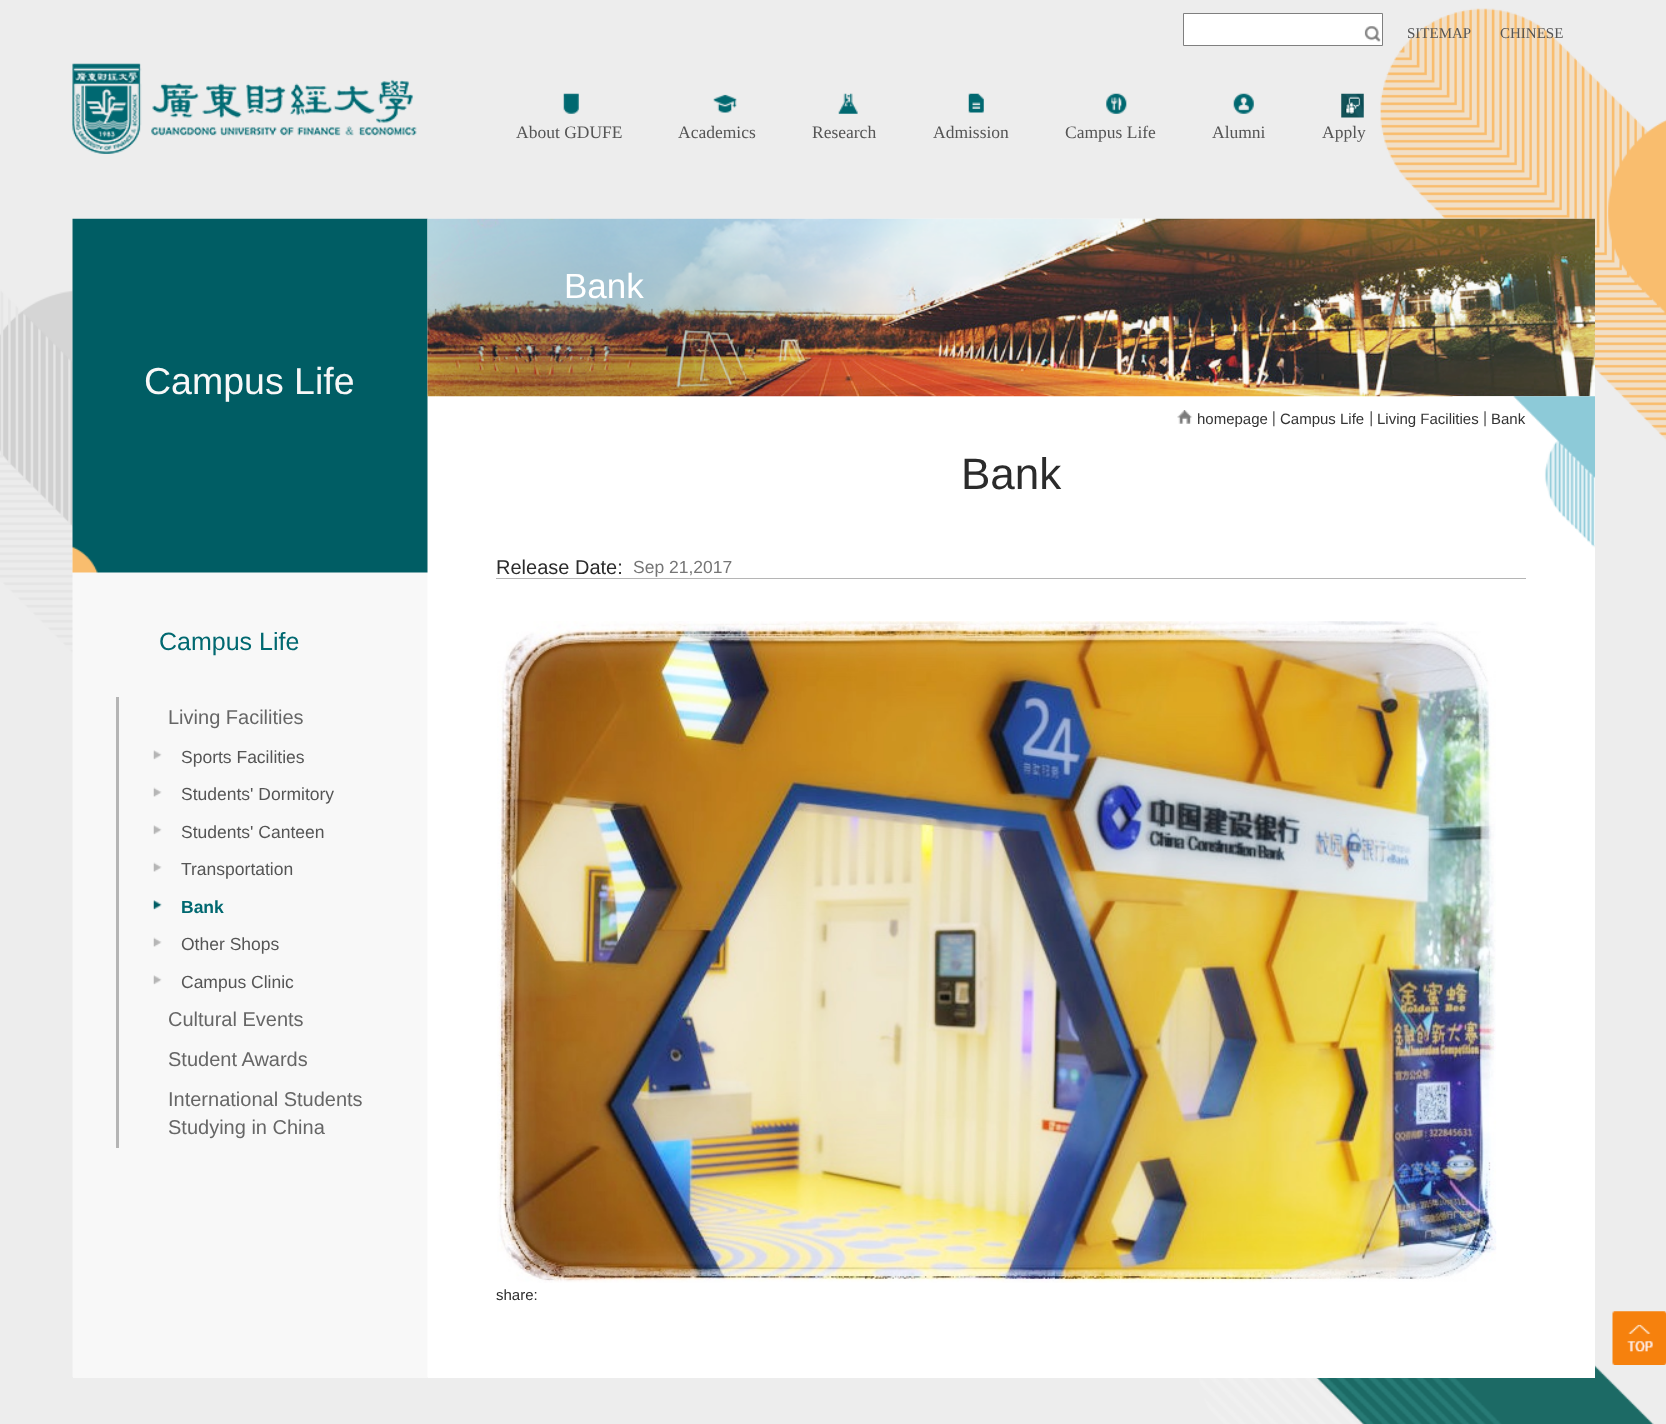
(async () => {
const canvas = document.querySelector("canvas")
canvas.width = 1666
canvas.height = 1424
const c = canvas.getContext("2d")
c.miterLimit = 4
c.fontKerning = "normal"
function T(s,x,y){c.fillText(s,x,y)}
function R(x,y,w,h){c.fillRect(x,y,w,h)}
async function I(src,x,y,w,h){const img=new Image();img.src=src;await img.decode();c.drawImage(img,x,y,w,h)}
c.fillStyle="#ededed"
R(0,0,1666,1424)
await I("1.png",0,8,1666,777)
c.fillStyle="#fff"
c.beginPath()
c.rect(1183.5,13.5,199,32)
c.fill()
c.strokeStyle="#7f7f7f"
c.stroke()
await I("2.png",1364,26,17,16)
c.font="15px Liberation Serif"
c.fillStyle="#555"
T("SITEMAP",1407,38)
T("CHINESE",1500,38)
await I("3.png",72,63,345,91)
await I("4.png",563,93,16,21)
c.font="17.5px Liberation Serif"
T("About GDUFE",516,138)
await I("5.png",713,94,24,19)
T("Academics",678,138)
await I("6.png",838,93,20,21)
T("Research",812,138)
await I("7.png",968,93,16,20)
T("Admission",933,138)
await I("8.png",1106,93,21,21)
T("Campus Life",1065,138)
await I("9.png",1233,93,21,21)
T("Alumni",1212,138)
await I("10.png",1341,93,23,25)
T("Apply",1322,138)
await I("11.png",1184,1101,470,323)
c.fillStyle="#f8f8f8"
R(73,1377,355,1)
await I("12.png",72,218,1523,1159)
await I("13.png",72,218,356,355)
c.font="37.5px Liberation Sans"
T("Campus Life",144,394)
c.font="25px Liberation Sans"
c.fillStyle="#006870"
T("Campus Life",159,650)
c.fillStyle="#b5b5b5"
R(116,697,3,451)
c.font="20px Liberation Sans"
c.fillStyle="#666"
T("Living Facilities",168,724)
await I("14.png",153,750,9,10)
c.font="17.5px Liberation Sans"
c.fillStyle="#555"
T("Sports Facilities",181,763)
await I("15.png",153,787,9,10)
T("Students' Dormitory",181,800)
await I("14.png",153,825,9,10)
T("Students' Canteen",181,838)
await I("15.png",153,862,9,10)
T("Transportation",181,875)
await I("16.png",153,900,9,10)
c.font="bold 17.5px Liberation Sans"
c.fillStyle="#006870"
T("Bank",181,913)
await I("15.png",153,937,9,10)
c.font="17.5px Liberation Sans"
c.fillStyle="#555"
T("Other Shops",181,950)
await I("14.png",153,975,9,10)
T("Campus Clinic",181,988)
c.font="20px Liberation Sans"
c.fillStyle="#666"
T("Cultural Events",168,1026)
T("Student Awards",168,1066)
T("International Students",168,1106)
T("Studying in China",168,1134)
c.fillStyle="#fff"
R(428,1377,1167,1)
await I("17.png",427,218,1168,179)
c.font="35px Liberation Sans"
T("Bank",564,298)
await I("18.png",1452,396,143,152)
await I("19.png",1177,410,16,14)
c.font="15px Liberation Sans"
c.fillStyle="#333"
T("homepage",1197,424)
await I("20.png",1273,411,2,16)
T("Campus Life",1280,424)
await I("21.png",1370,411,2,16)
T("Living Facilities",1377,424)
await I("22.png",1484,411,2,16)
T("Bank",1491,424)
c.fillStyle="#b5b5b5"
R(496,578,1030,1)
c.font="44px Liberation Sans"
c.fillStyle="#2b2b2b"
T("Bank",961,489)
c.font="20px Liberation Sans"
T("Release Date:",496,574)
c.font="17.5px Liberation Sans"
c.fillStyle="#757575"
T("Sep 21,2017",633,573)
await I("23.png",497,621,1000,662)
c.font="15px Liberation Sans"
c.fillStyle="#2b2b2b"
T("share:",496,1300)
await I("24.png",1612,1311,54,54)
})()
